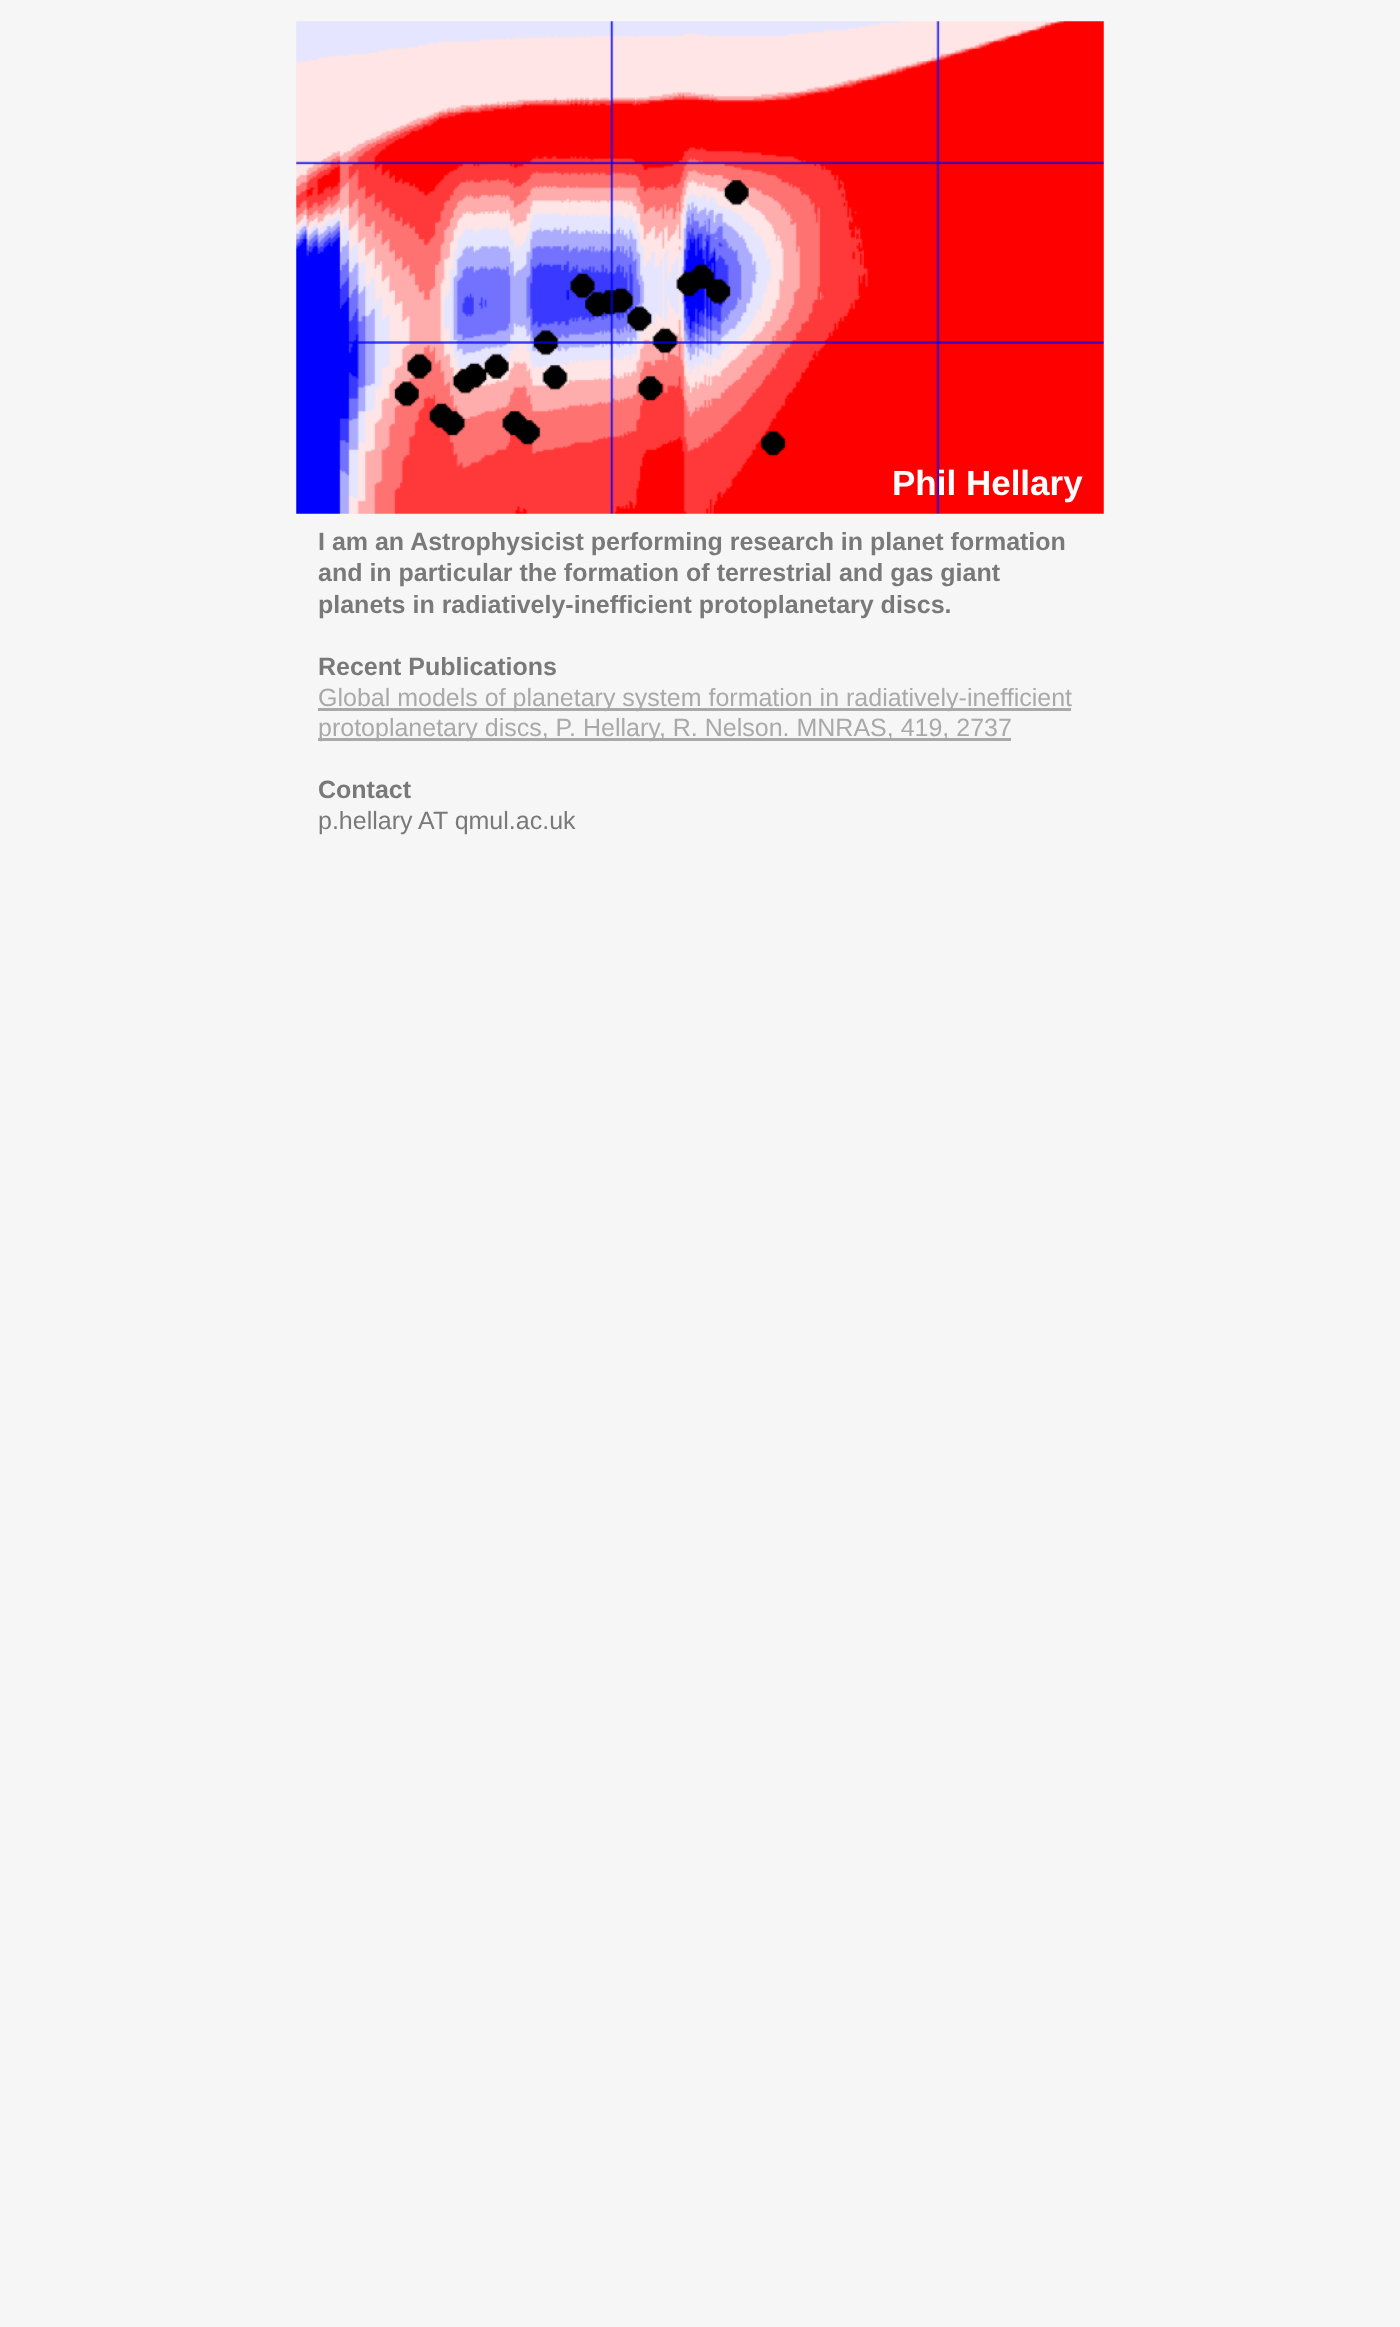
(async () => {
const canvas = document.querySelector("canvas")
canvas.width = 1400
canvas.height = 2327
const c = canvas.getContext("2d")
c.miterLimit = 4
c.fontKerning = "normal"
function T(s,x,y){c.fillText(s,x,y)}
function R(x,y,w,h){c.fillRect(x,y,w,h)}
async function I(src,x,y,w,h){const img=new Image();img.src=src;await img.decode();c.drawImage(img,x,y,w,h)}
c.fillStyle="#f7f6f6"
R(0,0,1400,2327)
await I("1.png",296,21,808,493)
c.font="bold 35px Liberation Sans"
c.fillStyle="#fff"
T("Phil Hellary",892,495)
c.font="bold 25px Liberation Sans"
c.fillStyle="#797979"
T("I am an Astrophysicist performing research in planet formation",318,550)
T("and in particular the formation of terrestrial and gas giant",318,581)
T("planets in radiatively-inefficient protoplanetary discs.",318,613)
T("Recent Publications",318,675)
c.fillStyle="#a9a9a9"
R(318,708,753,3)
c.font="25px Liberation Sans"
T("Global models of planetary system formation in radiatively-inefficient",318,706)
R(318,738,693,3)
T("protoplanetary discs, P. Hellary, R. Nelson. MNRAS, 419, 2737",318,736)
c.font="bold 25px Liberation Sans"
c.fillStyle="#797979"
T("Contact",318,798)
c.font="25px Liberation Sans"
T("p.hellary AT qmul.ac.uk",318,829)
})()
